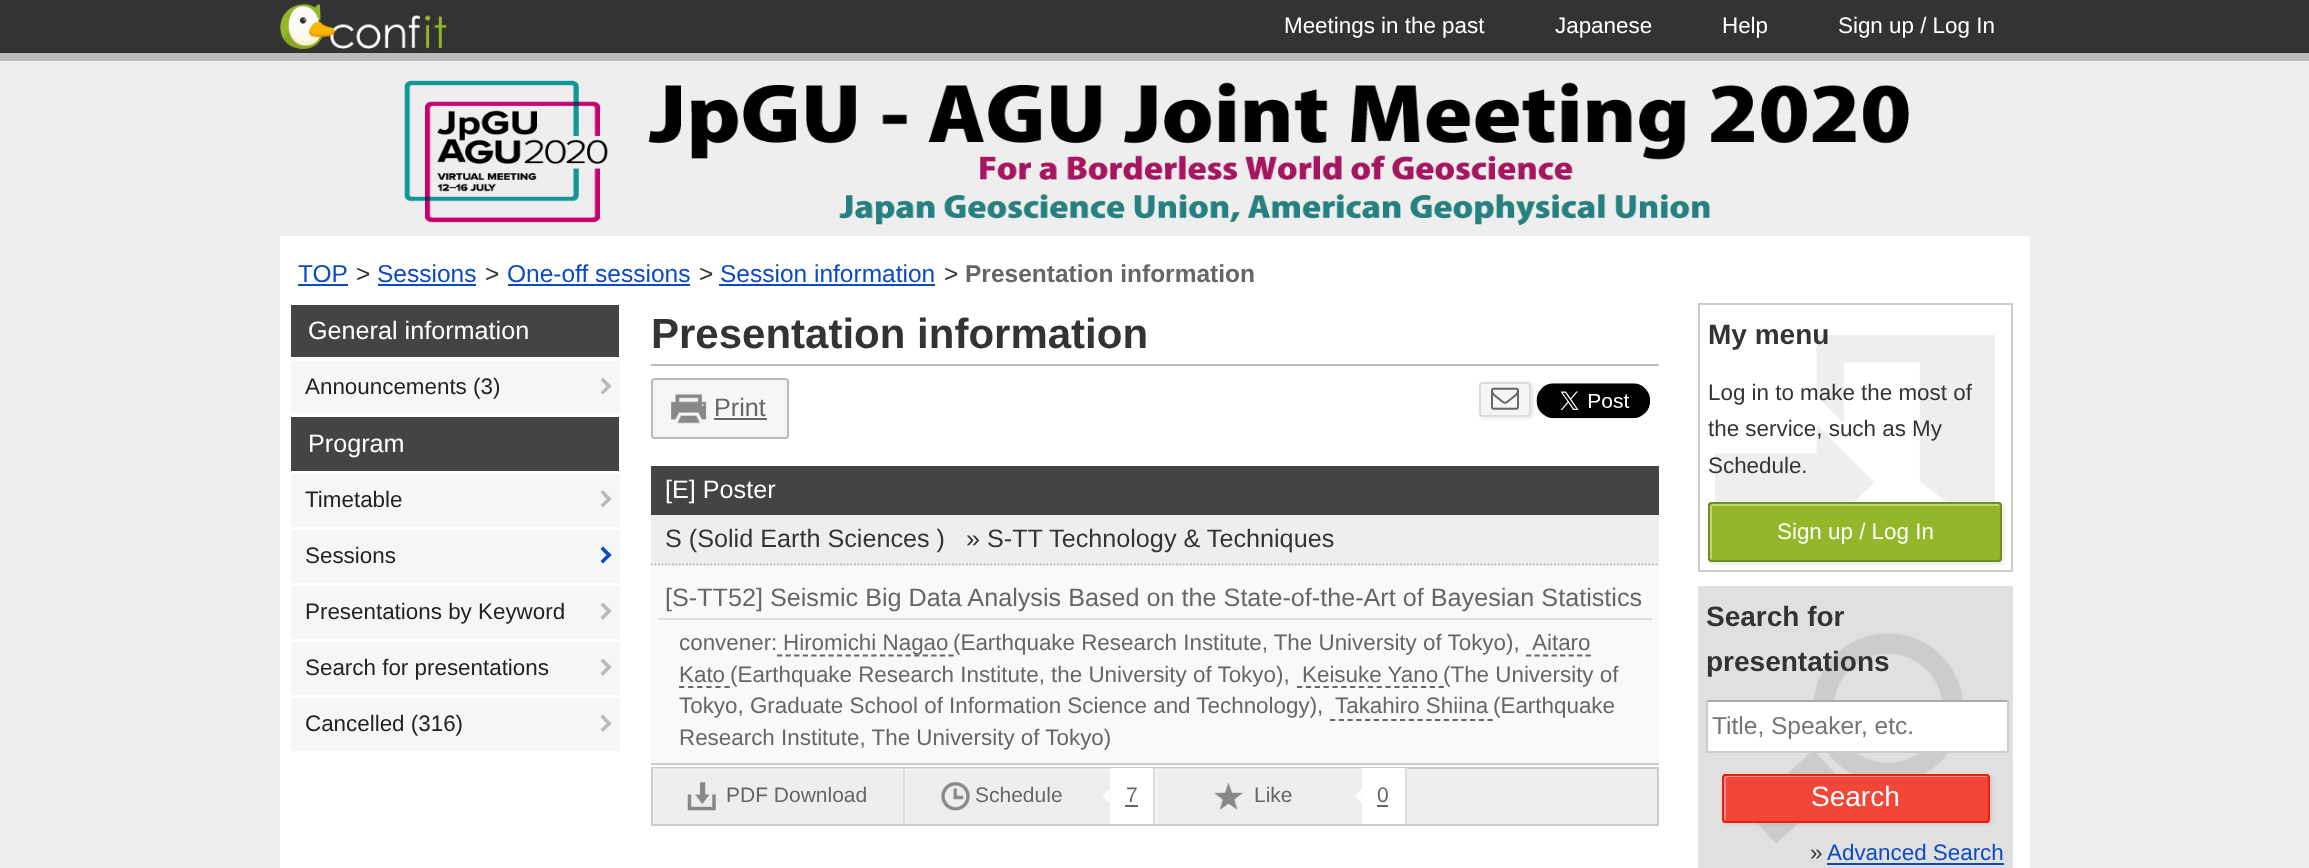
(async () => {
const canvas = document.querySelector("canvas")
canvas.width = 2309
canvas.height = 868
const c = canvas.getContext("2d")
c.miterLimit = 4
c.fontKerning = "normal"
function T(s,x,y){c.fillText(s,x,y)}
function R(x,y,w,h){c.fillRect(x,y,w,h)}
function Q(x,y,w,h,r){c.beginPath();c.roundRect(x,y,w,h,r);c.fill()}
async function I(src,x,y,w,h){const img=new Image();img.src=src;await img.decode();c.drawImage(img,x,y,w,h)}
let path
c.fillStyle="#eee"
R(0,0,2309,868)
c.fillStyle="#333"
R(0,0,2309,53)
c.fillStyle="#bbb"
R(0,53,2309,8)
await I("1.png",280,3,167,46)
c.font="22.4px Liberation Sans"
c.fillStyle="#fff"
T("Meetings in the past",1284,33)
T("Japanese",1555,33)
T("Help",1722,33)
T("Sign up / Log In",1838,33)
await I("2.png",404,80,1505,146)
R(280,236,1750,632)
c.font="24.5px Liberation Sans"
c.fillStyle="#0c49c5"
T("TOP",298,282)
R(298,284,50,2)
c.fillStyle="#333"
T(">",356,282)
c.fillStyle="#0c49c5"
T("Sessions",377,282)
R(378,284,98,2)
c.fillStyle="#333"
T(">",485,282)
c.fillStyle="#0c49c5"
T("One-off sessions",507,282)
R(508,284,182,2)
c.fillStyle="#333"
T(">",699,282)
c.fillStyle="#0c49c5"
T("Session information",720,282)
R(719,284,216,2)
c.fillStyle="#333"
T(">",944,282)
c.font="bold 24.5px Liberation Sans"
c.fillStyle="#666"
T("Presentation information",965,282)
c.fillStyle="#444"
R(291,305,328,52)
c.font="25.2px Liberation Sans"
c.fillStyle="#fff"
T("General information",308,339)
c.fillStyle="#f6f6f6"
R(291,361,329,52)
c.font="22.4px Liberation Sans"
c.fillStyle="#222"
T("Announcements (3)",305,394)
c.fillStyle="#bbb"
path = new Path2D("M603 377.5l8.5 8.5l-2.5 2.5l-8.5-8.5z")
c.fill(path)
path = new Path2D("M609 383.5l2.5 2.5l-8.5 8.5l-2.5-2z")
c.fill(path)
c.fillStyle="#444"
R(291,417,328,54)
c.font="25.2px Liberation Sans"
c.fillStyle="#fff"
T("Program",308,452)
c.fillStyle="#f6f6f6"
R(291,474,329,53)
c.font="22.4px Liberation Sans"
c.fillStyle="#222"
T("Timetable",305,507)
c.fillStyle="#bbb"
path = new Path2D("M603 490l8.5 9l-2.5 2.5l-8.5-9z")
c.fill(path)
path = new Path2D("M609 496.5l2.5 2.5l-8.5 8.5l-2.5-2.5z")
c.fill(path)
c.fillStyle="#f6f6f6"
R(291,530,329,53)
c.fillStyle="#222"
T("Sessions",305,563)
c.fillStyle="#0c49c5"
path = new Path2D("M603 546.5l8.5 8.5l-2.5 2.5l-8.5-8.5z")
c.fill(path)
path = new Path2D("M609 552.5l2.5 2.5l-8.5 8.5l-2.5-2.5z")
c.fill(path)
c.fillStyle="#f6f6f6"
R(291,586,329,53)
c.fillStyle="#222"
T("Presentations by Keyword",305,619)
c.fillStyle="#bbb"
path = new Path2D("M603 602.5l8.5 8.5l-2.5 2.5l-8.5-8.5z")
c.fill(path)
path = new Path2D("M609 608.5l2.5 2.5l-8.5 9l-2.5-2.5z")
c.fill(path)
c.fillStyle="#f6f6f6"
R(291,642,329,53)
c.fillStyle="#222"
T("Search for presentations",305,675)
c.fillStyle="#bbb"
path = new Path2D("M603 658.5l8.5 8.5l-2.5 2.5l-8.5-8.5z")
c.fill(path)
path = new Path2D("M609 664.5l2.5 2.5l-8.5 9l-2.5-2.5z")
c.fill(path)
c.fillStyle="#f6f6f6"
R(291,698,329,53)
c.fillStyle="#222"
T("Cancelled (316)",305,731)
c.fillStyle="#bbb"
path = new Path2D("M603 714.5l8.5 9l-2.5 2.5l-8.5-9z")
c.fill(path)
path = new Path2D("M609 721l2.5 2.5l-8.5 8.5l-2.5-2.5z")
c.fill(path)
R(651,364,1008,2)
c.font="bold 42px Liberation Sans"
c.fillStyle="#333"
T("Presentation information",651,348)
c.fillStyle="#f6f6f6"
c.beginPath()
c.roundRect(652,379,136,59,3)
c.fill()
c.strokeStyle="#bbb"
c.lineWidth=2
c.stroke()
await I("3.png",671,393,36,31)
c.font="25.2px Liberation Sans"
c.fillStyle="#666"
T("Print",714,416)
R(714,418,53,2)
await I("5.png",1536,383,115,36)
c.fillStyle="#0000001a"
c.filter="blur(2px)"
c.beginPath()
c.roundRect(1481,383,52,35,4)
c.fill()
c.filter="none"
c.fillStyle="#f5f5f5"
Q(1479,382,52,35,4)
c.fillStyle="#f9f9f9"
path = new Path2D("M1484 385h46c0-1-1-2-2-2h-45c-1 0-2 1-2 2v28c0 1 0 1 1 2v-28c0-1 1-2 2-2z")
c.fill(path)
c.beginPath()
c.roundRect(1480,383,50,33,3)
c.strokeStyle="#dcdcdc"
c.stroke()
await I("4.png",1491,387,28,23)
R(651,565,1008,198)
c.fillStyle="#444"
R(651,466,1008,49)
c.fillStyle="#fff"
T("[E] Poster",665,498)
c.fillStyle="#eee"
R(651,515,1008,50)
path = new Path2D("M651 564.5h1008")
c.strokeStyle="#bbb"
c.lineWidth=1.8
c.setLineDash([1.75,1.75])
c.stroke(path)
c.fillStyle="#333"
T("S (Solid Earth Sciences )",665,547)
T("» S-TT Technology & Techniques",966,547)
c.fillStyle="#ddd"
R(658,618,994,2)
c.fillStyle="#666"
T("[S-TT52] Seismic Big Data Analysis Based on the State-of-the-Art of Bayesian Statistics",665,606)
c.font="22.4px Liberation Sans"
T("convener:",679,650)
path = new Path2D("M777 655.5h177")
c.strokeStyle="#666"
c.setLineDash([5.25,3.32])
c.stroke(path)
T("Hiromichi Nagao",783,650)
T("(Earthquake Research Institute, The University of Tokyo),",953,650)
T("Aitaro",1532,650)
path = new Path2D("M1526 655.5h65")
c.setLineDash([5.25,3.26])
c.stroke(path)
T("Kato",679,682)
path = new Path2D("M679 687h51")
c.setLineDash([5.25,3.85])
c.stroke(path)
T("(Earthquake Research Institute, the University of Tokyo),",730,682)
T("Keisuke Yano",1302,682)
path = new Path2D("M1297 687h147")
c.setLineDash([5.25,3.6])
c.stroke(path)
T("(The University of",1443,682)
T("Tokyo, Graduate School of Information Science and Technology),",679,713)
T("Takahiro Shiina",1335,713)
path = new Path2D("M1330 720h163")
c.setLineDash([5.25,3.5])
c.stroke(path)
T("(Earthquake",1493,713)
T("Research Institute, The University of Tokyo)",679,745)
c.fillStyle="#ccc"
R(651,763,1008,2)
c.fillStyle="#eee"
c.beginPath()
c.rect(652,768,1006,57)
c.fill()
c.strokeStyle="#ccc"
c.lineWidth=2
c.setLineDash([])
c.stroke()
c.save()
c.beginPath()
c.rect(653,768,250,56)
c.clip()
c.fillStyle="#ffffff66"
path = new Path2D("M480 595h596v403h-596zm174 175h251v56h-251z")
c.fill(path,"evenodd")
c.restore()
c.fillStyle="#ddd"
R(903,768,2,56)
await I("6.png",687,782,29,29)
c.font="21px Liberation Sans"
c.fillStyle="#666"
T("PDF Download",726,802)
c.save()
c.beginPath()
c.rect(905,768,248,56)
c.clip()
c.fillStyle="#ffffff66"
path = new Path2D("M732 595h594v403h-594zm174 175h249v56h-249z")
c.fill(path,"evenodd")
c.restore()
c.fillStyle="#ddd"
R(1153,768,2,56)
await I("7.png",941,782,29,29)
c.fillStyle="#666"
T("Schedule",975,802)
c.fillStyle="#fff"
R(1110,768,43,56)
path = new Path2D("M1109.5 789v14l-7-7z")
c.fill(path)
c.fillStyle="#666"
T("7",1126,802)
R(1125,805,13,2)
c.save()
c.beginPath()
c.rect(1155,768,250,56)
c.clip()
c.fillStyle="#ffffff66"
path = new Path2D("M982 595h596v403h-596zm175 175h250v56h-250z")
c.fill(path,"evenodd")
c.restore()
c.fillStyle="#ddd"
R(1405,768,2,56)
await I("8.png",1214,782,29,28)
c.fillStyle="#666"
T("Like",1254,802)
c.fillStyle="#fff"
R(1362,768,43,56)
path = new Path2D("M1361.5 789v14l-7-7z")
c.fill(path)
c.fillStyle="#666"
T("0",1377,802)
R(1377,805,11,2)
await I("9.png",1715,335,280,167)
c.strokeRect(1699,304,313,267)
c.font="bold 28px Liberation Sans"
c.fillStyle="#333"
T("My menu",1708,344)
c.font="22.4px Liberation Sans"
T("Log in to make the most of",1708,400)
T("the service, such as My",1708,436)
T("Schedule.",1708,473)
c.fillStyle="#0000001a"
c.filter="blur(2px)"
c.beginPath()
c.roundRect(1710,504,294,60,4)
c.fill()
c.filter="none"
c.fillStyle="#93b728"
Q(1708,502,294,60,4)
c.fillStyle="#bed47e"
path = new Path2D("M1713 506h287c0-1-1-2-2-2h-286c-1 0-2 1-2 2v52c0 1 1 2 2 2v-52c0-1 0-2 1-2z")
c.fill(path)
c.beginPath()
c.roundRect(1709,503,292,58,3)
c.strokeStyle="#718d1f"
c.stroke()
c.fillStyle="#fff"
T("Sign up / Log In",1777,539)
c.fillStyle="#e0e0e0"
R(1698,586,315,282)
await I("10.png",1757,633,206,210)
c.font="bold 28px Liberation Sans"
c.fillStyle="#333"
T("Search for",1706,626)
T("presentations",1706,671)
c.fillStyle="#fff"
R(1708,702,299,49)
c.fillStyle="#aaa"
R(1706,700,303,2)
c.fillStyle="#ccc"
R(2007,700,2,53)
R(1706,751,303,2)
R(1706,700,2,53)
c.font="24.5px Liberation Sans"
c.fillStyle="#757575"
T("Title, Speaker, etc.",1712,734)
c.fillStyle="#0000001a"
c.filter="blur(2px)"
c.beginPath()
c.roundRect(1724,775,268,49,4)
c.fill()
c.filter="none"
c.fillStyle="#f24738"
Q(1722,774,268,49,4)
c.fillStyle="#f79188"
path = new Path2D("M1727 777h261c0-1-1-2-2-2h-260c-1 0-2 1-2 2v42c0 1 1 2 2 2v-42c0-1 0-2 1-2z")
c.fill(path)
c.beginPath()
c.roundRect(1723,775,266,47,3)
c.strokeStyle="#e8210f"
c.stroke()
c.font="28px Liberation Sans"
c.fillStyle="#fff"
T("Search",1811,806)
c.font="22.4px Liberation Sans"
c.fillStyle="#333"
T("»",1810,860)
c.fillStyle="#0c49c5"
T("Advanced Search",1827,860)
R(1827,863,177,2)
})()
